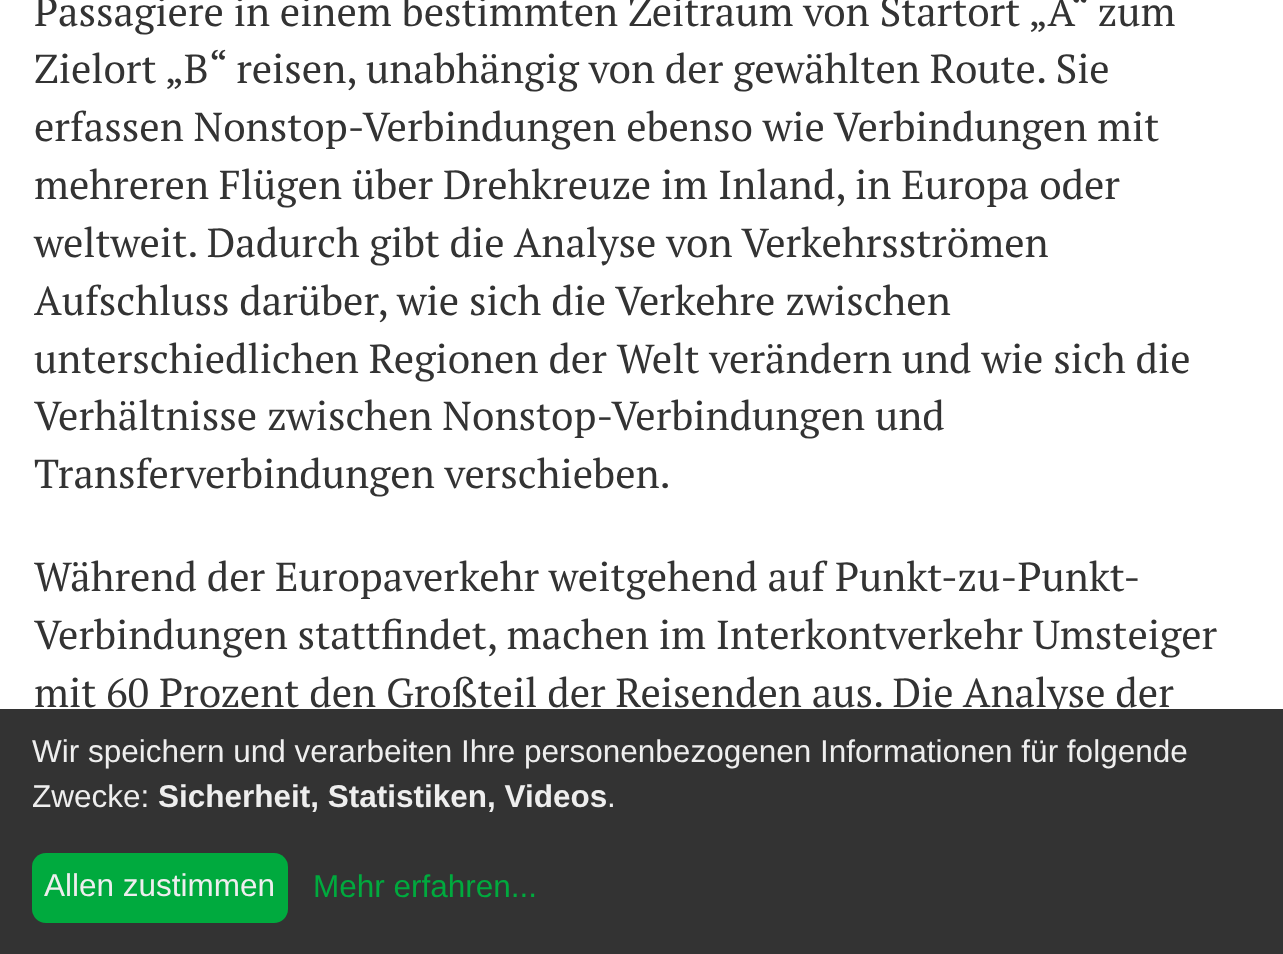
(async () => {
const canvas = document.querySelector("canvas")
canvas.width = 1283
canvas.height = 954
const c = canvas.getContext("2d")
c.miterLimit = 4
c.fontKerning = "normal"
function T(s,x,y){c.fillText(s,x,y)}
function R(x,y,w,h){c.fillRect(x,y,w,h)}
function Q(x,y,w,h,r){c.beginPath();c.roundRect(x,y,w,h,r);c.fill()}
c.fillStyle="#fff"
R(0,0,1283,954)
c.font="40.5px PT Serif"
c.fillStyle="#333"
T("Passagiere in einem bestimmten Zeitraum von Startort „A“ zum",34,26)
T("Zielort „B“ reisen, unabhängig von der gewählten Route. Sie",34,83)
T("erfassen Nonstop-Verbindungen ebenso wie Verbindungen mit",34,141)
T("mehreren Flügen über Drehkreuze im Inland, in Europa oder",34,199)
T("weltweit. Dadurch gibt die Analyse von Verkehrsströmen",34,257)
T("Aufschluss darüber, wie sich die Verkehre zwischen",34,315)
T("unterschiedlichen Regionen der Welt verändern und wie sich die",34,373)
T("Verhältnisse zwischen Nonstop-Verbindungen und",34,430)
T("Transferverbindungen verschieben.",34,488)
T("Während der Europaverkehr weitgehend auf Punkt-zu-Punkt-",34,591)
T("Verbindungen stattfindet, machen im Interkontverkehr Umsteiger",34,649)
T("mit 60 Prozent den Großteil der Reisenden aus. Die Analyse der",34,707)
R(0,709,1283,245)
c.font="31.5px Liberation Sans"
c.fillStyle="#eee"
T("Wir speichern und verarbeiten Ihre personenbezogenen Informationen für folgende",32,762)
T("Zwecke:",32,807)
c.font="bold 31.5px Liberation Sans"
T("Sicherheit, Statistiken, Videos",158,807)
c.font="31.5px Liberation Sans"
T(".",607,807)
c.fillStyle="#00aa3e"
Q(32,853,256,70,14)
c.fillStyle="#eee"
T("Allen zustimmen",44,896)
c.fillStyle="#00aa3e"
T("Mehr erfahren...",313,897)
})()
